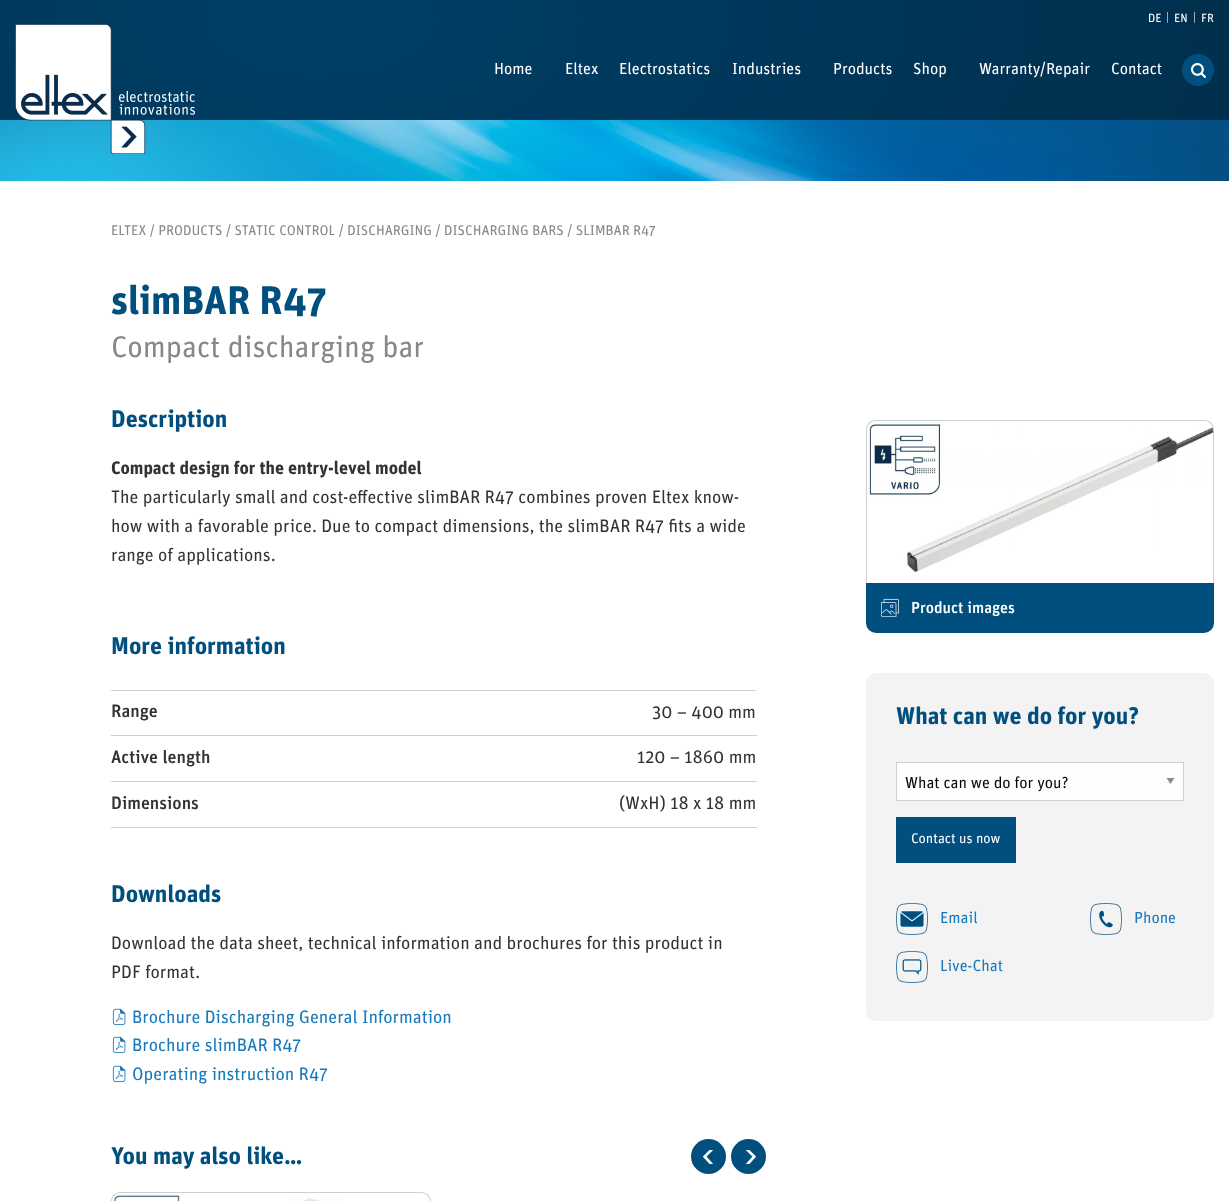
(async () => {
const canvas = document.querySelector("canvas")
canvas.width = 1229
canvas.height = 1201
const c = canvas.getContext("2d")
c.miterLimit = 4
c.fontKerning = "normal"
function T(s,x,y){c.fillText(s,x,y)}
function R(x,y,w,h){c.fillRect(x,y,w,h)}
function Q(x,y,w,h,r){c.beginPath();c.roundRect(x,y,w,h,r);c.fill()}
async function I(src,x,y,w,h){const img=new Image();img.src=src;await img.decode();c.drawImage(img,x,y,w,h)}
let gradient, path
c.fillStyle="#fff"
R(0,0,1229,1201)
gradient = c.createRadialGradient(320,38.92,0,320,38.92,1229)
gradient.addColorStop(0,"#003f66")
gradient.addColorStop(1,"#002a45")
c.fillStyle = gradient
c.beginPath()
c.rect(0,0,1229,120)
c.save()
c.clip()
c.scale(1,600 / 1229)
c.fillRect(0,0,1229,2461)
c.restore()
await I("3.png",0,120,1229,61)
await I("1.png",15,24,180,130)
c.font="12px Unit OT"
c.fillStyle="#fff"
T("DE",1148,22)
c.fillStyle="#cfcfcf"
T("|",1166,21)
c.fillStyle="#fff"
T("EN",1174,22)
c.fillStyle="#cfcfcf"
T("|",1193,21)
c.fillStyle="#fff"
T("FR",1201,22)
c.font="16px Unit OT"
T("Home",494,74)
T("Eltex",565,74)
T("Electrostatics",619,74)
T("Industries",732,74)
T("Products",833,74)
T("Shop",913,74)
T("Warranty/Repair",979,74)
T("Contact",1111,74)
c.fillStyle="#004f7f"
c.beginPath()
c.arc(1198,70,16,0,7)
c.fill()
await I("2.png",1191,63,15,15)
c.font="14px Unit OT"
c.fillStyle="#888"
T("ELTEX / PRODUCTS / STATIC CONTROL / DISCHARGING / DISCHARGING BARS / SLIMBAR R47",111,235)
c.font="bold 40px Unit OT"
c.fillStyle="#004f7f"
T("slimBAR R47",111,314)
c.font="30px Unit OT"
c.fillStyle="#888"
T("Compact discharging bar",111,357)
c.font="bold 24px Unit OT"
c.fillStyle="#004f7f"
T("Description",111,427)
c.font="bold 18px Unit OT"
c.fillStyle="#333"
T("Compact design for the entry-level model",111,474)
c.font="18px Unit OT"
T("The particularly small and cost-effective slimBAR R47 combines proven Eltex know-",111,503)
T("how with a favorable price. Due to compact dimensions, the slimBAR R47 fits a wide",111,532)
T("range of applications.",111,561)
c.fillStyle="#cfcfcf"
path = new Path2D("M876 420h328c6 0 10 4 10 10v153h-348v-153c0-6 4-10 10-10zm0 1h328c5 0 9 4 9 9v153h-346v-153c0-5 4-9 9-9z")
c.fill(path,"evenodd")
await I("4.png",867,421,346,151)
c.fillStyle="#004f7f"
c.beginPath()
c.roundRect(866,583,348,50,[0,0,10,10])
c.fill()
await I("5.png",881,598,18,19)
c.font="500 16px Unit OT"
c.fillStyle="#fff"
T("Product images",911,613)
c.font="bold 24px Unit OT"
c.fillStyle="#004f7f"
T("More information",111,654)
c.fillStyle="#cfcfcf"
R(111,690,645,1)
c.font="500 18px Unit OT"
c.fillStyle="#333"
T("Range",111,717)
c.fillStyle="#cfcfcf"
R(111,735,646,1)
c.font="18px Unit OT"
c.fillStyle="#333"
T("30 – 400 mm",652,718)
c.font="500 18px Unit OT"
T("Active length",111,763)
c.fillStyle="#cfcfcf"
R(111,781,646,1)
c.font="18px Unit OT"
c.fillStyle="#333"
T("120 – 1860 mm",637,763)
c.font="500 18px Unit OT"
T("Dimensions",111,809)
c.fillStyle="#cfcfcf"
R(111,827,646,1)
c.font="18px Unit OT"
c.fillStyle="#333"
T("(WxH) 18 x 18 mm",619,809)
c.font="bold 24px Unit OT"
c.fillStyle="#004f7f"
T("Downloads",111,902)
c.font="18px Unit OT"
c.fillStyle="#333"
T("Download the data sheet, technical information and brochures for this product in",111,949)
T("PDF format.",111,978)
await I("6.png",112,1008,14,18)
c.fillStyle="#1779ba"
T("Brochure Discharging General Information",132,1023)
await I("6.png",112,1036,14,18)
T("Brochure slimBAR R47",132,1051)
await I("6.png",112,1065,14,18)
T("Operating instruction R47",132,1080)
c.fillStyle="#f3f3f3"
Q(866,673,348,348,10)
c.font="bold 24px Unit OT"
c.fillStyle="#004f7f"
T("What can we do for you?",896,724)
c.fillStyle="#fefefe"
R(897,763,286,37)
c.fillStyle="#8a8a8a"
path = new Path2D("M1166.5 778h8l-4 6z")
c.fill(path)
c.strokeStyle="#cfcfcf"
c.strokeRect(896.5,762.5,287,38)
c.font="16px Unit OT"
c.fillStyle="#0a0a0a"
T("What can we do for you?",905,788)
c.fillStyle="#004f7f"
R(896,817,120,46)
c.font="14px Unit OT"
c.fillStyle="#fff"
T("Contact us now",911,843)
await I("7.png",896,903,32,32)
c.font="16px Unit OT"
c.fillStyle="#1779ba"
T("Email",940,923)
await I("8.png",1090,903,32,32)
T("Phone",1134,923)
await I("9.png",896,951,32,32)
T("Live-Chat",940,971)
c.fillStyle="#004f7f"
c.beginPath()
c.arc(708.5,1156.5,17.5,0,7)
c.fill()
await I("10.png",702,1150,11,14)
c.beginPath()
c.arc(748.5,1156.5,17.5,0,7)
c.fill()
await I("11.png",745,1150,11,14)
c.fillStyle="#cfcfcf"
path = new Path2D("M121 1192h300c6 0 10 4 10 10v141h-320v-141c0-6 4-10 10-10zm0 1h300c5 0 9 4 9 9v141h-318v-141c0-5 4-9 9-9z")
c.fill(path,"evenodd")
await I("12.png",112,1193,318,8)
c.font="bold 24px Unit OT"
c.fillStyle="#004f7f"
T("You may also like…",111,1164)
})()
